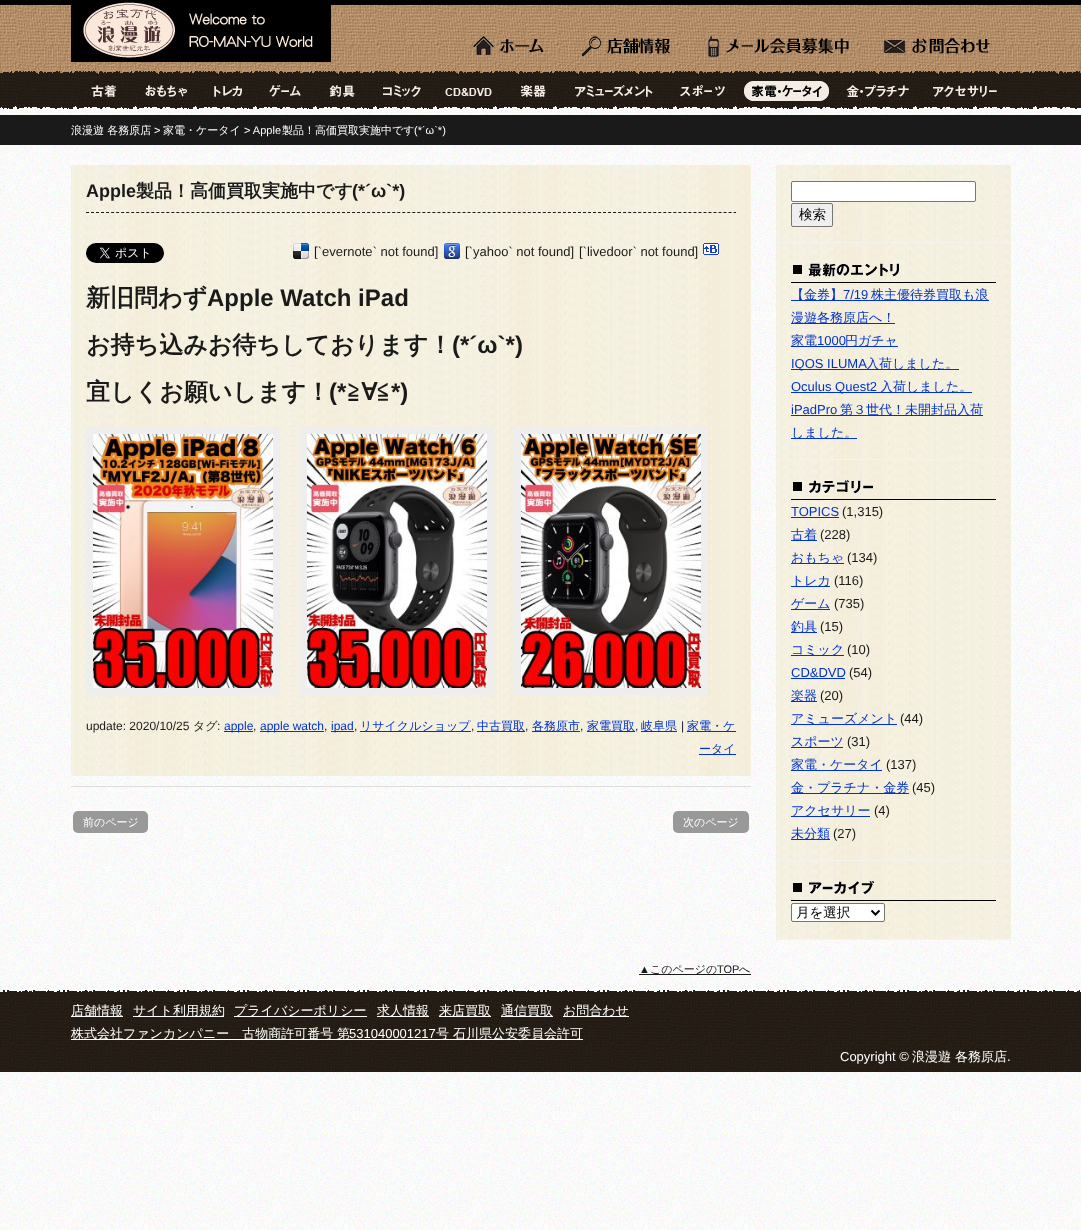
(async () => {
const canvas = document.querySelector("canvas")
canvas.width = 1081
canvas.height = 1230
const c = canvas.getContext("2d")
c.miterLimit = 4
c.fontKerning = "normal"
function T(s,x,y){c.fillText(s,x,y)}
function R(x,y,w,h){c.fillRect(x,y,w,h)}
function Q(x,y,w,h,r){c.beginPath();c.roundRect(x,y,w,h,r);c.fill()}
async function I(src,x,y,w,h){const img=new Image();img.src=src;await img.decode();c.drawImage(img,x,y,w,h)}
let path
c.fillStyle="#fff"
R(0,0,1081,1230)
await I("1.png",0,106,1081,1124)
await I("2.png",0,0,1081,70)
await I("3.png",71,2,260,60)
await I("4.png",472,36,72,20)
await I("5.png",581,36,89,22)
await I("6.png",707,36,142,22)
await I("7.png",883,38,107,16)
await I("8.png",0,70,1081,39)
await I("9.png",91,85,906,12)
await I("10.png",744,81,85,20)
c.fillStyle="#1a1a1a"
R(0,115,1081,30)
c.font="500 11px WenQuanYi Zen Hei"
c.fillStyle="#fff"
T("浪漫遊 各務原店",71,134)
c.font="11px Liberation Sans"
T(">",154,134)
c.font="500 11px WenQuanYi Zen Hei"
T("家電・ケータイ",163,134)
c.font="11px Liberation Sans"
T("> Apple",244,134)
c.font="500 11px WenQuanYi Zen Hei"
T("製品！高価買取実施中です",282,134)
c.font="11px Liberation Sans"
T("(*´ω`*)",414,134)
await I("11.png",71,165,680,611)
path = new Path2D("M86 212.5h650")
c.strokeStyle="#1a1a1a"
c.setLineDash([3,2.02])
c.stroke(path)
c.font="bold 18px Liberation Sans"
c.fillStyle="#1a1a1a"
T("Apple",86,197)
c.font="bold 18px WenQuanYi Zen Hei"
T("製品！高価買取実施中です",136,197)
c.font="bold 18px Liberation Sans"
T("(*´ω`*)",352,197)
await I("12.png",86,243,78,20)
await I("13.png",293,243,16,16)
c.font="13px Liberation Sans"
T("[`evernote` not found]",314,256)
await I("14.png",444,243,16,16)
T("[`yahoo` not found]",465,256)
T("[`livedoor` not found]",579,256)
await I("15.png",703,243,16,12)
c.font="bold 24px WenQuanYi Zen Hei"
T("新旧問わず",86,306)
c.font="bold 24px Liberation Sans"
T("Apple Watch iPad",207,306)
c.font="bold 24px WenQuanYi Zen Hei"
T("お持ち込みお待ちしております！",86,353)
c.font="bold 24px Liberation Sans"
T("(*´ω`*)",452,353)
c.font="bold 24px WenQuanYi Zen Hei"
T("宜しくお願いします！",86,400)
c.font="bold 24px Liberation Sans"
T("(*",329,400)
c.font="bold 24px WenQuanYi Zen Hei"
T("≧∀≦",347,400)
c.font="bold 24px Liberation Sans"
T("*)",391,400)
c.fillStyle="#eee"
R(86,427,194,268)
await I("16.png",93,434,180,254)
R(300,427,194,268)
await I("17.png",307,434,180,254)
R(514,427,194,268)
await I("18.png",521,434,180,254)
c.font="12px Liberation Sans"
c.fillStyle="#1a1a1a"
T("update: 2020/10/25",86,730)
c.font="500 12px WenQuanYi Zen Hei"
T("タグ",193,730)
c.font="12px Liberation Sans"
T(":",217,730)
c.fillStyle="#03c"
R(224,731,29,1)
T("apple",224,730)
c.fillStyle="#1a1a1a"
T(",",253,730)
c.fillStyle="#03c"
R(260,731,64,1)
T("apple watch",260,730)
c.fillStyle="#1a1a1a"
T(",",324,730)
c.fillStyle="#03c"
R(331,731,23,1)
T("ipad",331,730)
c.fillStyle="#1a1a1a"
T(",",354,730)
c.fillStyle="#03c"
R(360,731,111,1)
c.font="500 12px WenQuanYi Zen Hei"
T("リサイクルショップ",360,730)
c.font="12px Liberation Sans"
c.fillStyle="#1a1a1a"
T(",",471,730)
c.fillStyle="#03c"
R(477,731,48,1)
c.font="500 12px WenQuanYi Zen Hei"
T("中古買取",477,730)
c.font="12px Liberation Sans"
c.fillStyle="#1a1a1a"
T(",",525,730)
c.fillStyle="#03c"
R(532,731,48,1)
c.font="500 12px WenQuanYi Zen Hei"
T("各務原市",532,730)
c.font="12px Liberation Sans"
c.fillStyle="#1a1a1a"
T(",",580,730)
c.fillStyle="#03c"
R(587,731,48,1)
c.font="500 12px WenQuanYi Zen Hei"
T("家電買取",587,730)
c.font="12px Liberation Sans"
c.fillStyle="#1a1a1a"
T(",",635,730)
c.fillStyle="#03c"
R(641,731,36,1)
c.font="500 12px WenQuanYi Zen Hei"
T("岐阜県",641,730)
c.font="12px Liberation Sans"
c.fillStyle="#1a1a1a"
T("|",681,730)
c.fillStyle="#03c"
R(687,731,49,1)
c.font="500 12px WenQuanYi Zen Hei"
T("家電・ケ",687,730)
R(699,754,37,1)
T("ータイ",699,753)
c.fillStyle="#ddd"
R(71,786,680,1)
c.fillStyle="#999"
Q(73,811,75,22,5)
c.font="500 11px WenQuanYi Zen Hei"
c.fillStyle="#fff"
T("前のページ",83,826)
c.fillStyle="#999"
Q(673,811,76,22,5)
c.fillStyle="#fff"
T("次のページ",683,826)
await I("19.png",776,165,235,775)
c.fillStyle="#f3f3f3"
R(776,242,235,1)
c.fillStyle="#fff"
c.beginPath()
c.roundRect(791.5,181.5,184,20,1.5)
c.fill()
c.strokeStyle="#767676"
c.setLineDash([])
c.stroke()
c.fillStyle="#efefef"
c.beginPath()
c.roundRect(791.5,203.5,41,23,1.5)
c.fill()
c.stroke()
c.font="500 13.5px WenQuanYi Zen Hei"
c.fillStyle="#000"
T("検索",799,219)
c.fillStyle="#f3f3f3"
R(776,459,235,1)
await I("20.png",791,263,205,20)
c.fillStyle="#03c"
R(791,300,198,1)
c.font="500 13px WenQuanYi Zen Hei"
T("【金券】",791,299)
c.font="13px Liberation Sans"
T("7/19",843,299)
c.font="500 13px WenQuanYi Zen Hei"
T("株主優待券買取も浪",871,299)
R(791,323,104,1)
T("漫遊各務原店へ！",791,322)
R(791,346,107,1)
T("家電",791,345)
c.font="13px Liberation Sans"
T("1000",817,345)
c.font="500 13px WenQuanYi Zen Hei"
T("円ガチャ",845,345)
R(791,369,168,1)
c.font="13px Liberation Sans"
T("IQOS ILUMA",791,368)
c.font="500 13px WenQuanYi Zen Hei"
T("入荷しました。",866,368)
R(791,392,181,1)
c.font="13px Liberation Sans"
T("Oculus Quest2",791,391)
c.font="500 13px WenQuanYi Zen Hei"
T("入荷しました。",880,391)
c.font="13px Liberation Sans"
T("iPadPro",791,414)
R(791,415,192,1)
c.font="500 13px WenQuanYi Zen Hei"
T("第３世代！未開封品入荷",840,414)
R(791,438,66,1)
T("しました。",791,437)
c.fillStyle="#f3f3f3"
R(776,860,235,1)
await I("21.png",791,480,205,20)
c.font="13px Liberation Sans"
c.fillStyle="#03c"
T("TOPICS",791,516)
R(791,517,48,1)
c.fillStyle="#1a1a1a"
T("(1,315)",842,516)
c.fillStyle="#03c"
R(791,540,26,1)
c.font="500 13px WenQuanYi Zen Hei"
T("古着",791,539)
c.font="13px Liberation Sans"
c.fillStyle="#1a1a1a"
T("(228)",820,539)
c.fillStyle="#03c"
R(791,563,53,1)
c.font="500 13px WenQuanYi Zen Hei"
T("おもちゃ",791,562)
c.font="13px Liberation Sans"
c.fillStyle="#1a1a1a"
T("(134)",847,562)
c.fillStyle="#03c"
R(791,586,39,1)
c.font="500 13px WenQuanYi Zen Hei"
T("トレカ",791,585)
c.font="13px Liberation Sans"
c.fillStyle="#1a1a1a"
T("(116)",834,585)
c.fillStyle="#03c"
R(791,609,39,1)
c.font="500 13px WenQuanYi Zen Hei"
T("ゲーム",791,608)
c.font="13px Liberation Sans"
c.fillStyle="#1a1a1a"
T("(735)",834,608)
c.fillStyle="#03c"
R(791,632,26,1)
c.font="500 13px WenQuanYi Zen Hei"
T("釣具",791,631)
c.font="13px Liberation Sans"
c.fillStyle="#1a1a1a"
T("(15)",820,631)
c.fillStyle="#03c"
R(791,655,53,1)
c.font="500 13px WenQuanYi Zen Hei"
T("コミック",791,654)
c.font="13px Liberation Sans"
c.fillStyle="#1a1a1a"
T("(10)",847,654)
c.fillStyle="#03c"
T("CD&DVD",791,677)
R(791,678,54,1)
c.fillStyle="#1a1a1a"
T("(54)",849,677)
c.fillStyle="#03c"
R(791,701,26,1)
c.font="500 13px WenQuanYi Zen Hei"
T("楽器",791,700)
c.font="13px Liberation Sans"
c.fillStyle="#1a1a1a"
T("(20)",820,700)
c.fillStyle="#03c"
R(791,724,106,1)
c.font="500 13px WenQuanYi Zen Hei"
T("アミューズメント",791,723)
c.font="13px Liberation Sans"
c.fillStyle="#1a1a1a"
T("(44)",900,723)
c.fillStyle="#03c"
R(791,747,52,1)
c.font="500 13px WenQuanYi Zen Hei"
T("スポーツ",791,746)
c.font="13px Liberation Sans"
c.fillStyle="#1a1a1a"
T("(31)",847,746)
c.fillStyle="#03c"
R(791,770,91,1)
c.font="500 13px WenQuanYi Zen Hei"
T("家電・ケータイ",791,769)
c.font="13px Liberation Sans"
c.fillStyle="#1a1a1a"
T("(137)",886,769)
c.fillStyle="#03c"
R(791,793,118,1)
c.font="500 13px WenQuanYi Zen Hei"
T("金・プラチナ・金券",791,792)
c.font="13px Liberation Sans"
c.fillStyle="#1a1a1a"
T("(45)",912,792)
c.fillStyle="#03c"
R(791,816,79,1)
c.font="500 13px WenQuanYi Zen Hei"
T("アクセサリー",791,815)
c.font="13px Liberation Sans"
c.fillStyle="#1a1a1a"
T("(4)",874,815)
c.fillStyle="#03c"
R(791,839,39,1)
c.font="500 13px WenQuanYi Zen Hei"
T("未分類",791,838)
c.font="13px Liberation Sans"
c.fillStyle="#1a1a1a"
T("(27)",833,838)
c.save()
c.beginPath()
c.roundRect(776,165,235,775,2)
c.clip()
c.fillStyle="#f3f3f3"
R(776,939,235,1)
c.restore()
await I("22.png",791,881,205,20)
c.fillStyle="#fff"
c.beginPath()
c.roundRect(791.5,903.5,93,18,1.5)
c.fill()
c.stroke()
path = new Path2D("M871.5 910.5l4 4l4-4")
c.strokeStyle="#000"
c.lineWidth=2
c.stroke(path)
c.font="500 13.5px WenQuanYi Zen Hei"
c.fillStyle="#000"
T("月を選択",796,917)
c.font="11px Liberation Sans"
c.fillStyle="#1a1a1a"
T("▲",639,973)
R(639,974,112,1)
c.font="500 11px WenQuanYi Zen Hei"
T("このページの",650,973)
c.font="11px Liberation Sans"
T("TOP",717,973)
c.font="500 11px WenQuanYi Zen Hei"
T("へ",739,973)
await I("23.png",0,990,1081,82)
c.fillStyle="#fff"
R(71,1016,52,1)
c.font="500 13px WenQuanYi Zen Hei"
T("店舗情報",71,1015)
R(133,1016,91,1)
T("サイト利用規約",133,1015)
R(234,1016,133,1)
T("プライバシーポリシー",234,1015)
R(377,1016,52,1)
T("求人情報",377,1015)
R(439,1016,52,1)
T("来店買取",439,1015)
R(501,1016,52,1)
T("通信買取",501,1015)
R(563,1016,66,1)
T("お問合わせ",563,1015)
R(71,1039,512,1)
T("株式会社ファンカンパニー　古物商許可番号 第",71,1038)
c.font="13px Liberation Sans"
T("531040001217",349,1038)
c.font="500 13px WenQuanYi Zen Hei"
T("号 石川県公安委員会許可",436,1038)
c.font="13px Liberation Sans"
T("Copyright ©",840,1061)
c.font="500 13px WenQuanYi Zen Hei"
T("浪漫遊 各務原店",912,1061)
c.font="13px Liberation Sans"
T(".",1007,1061)
})()
